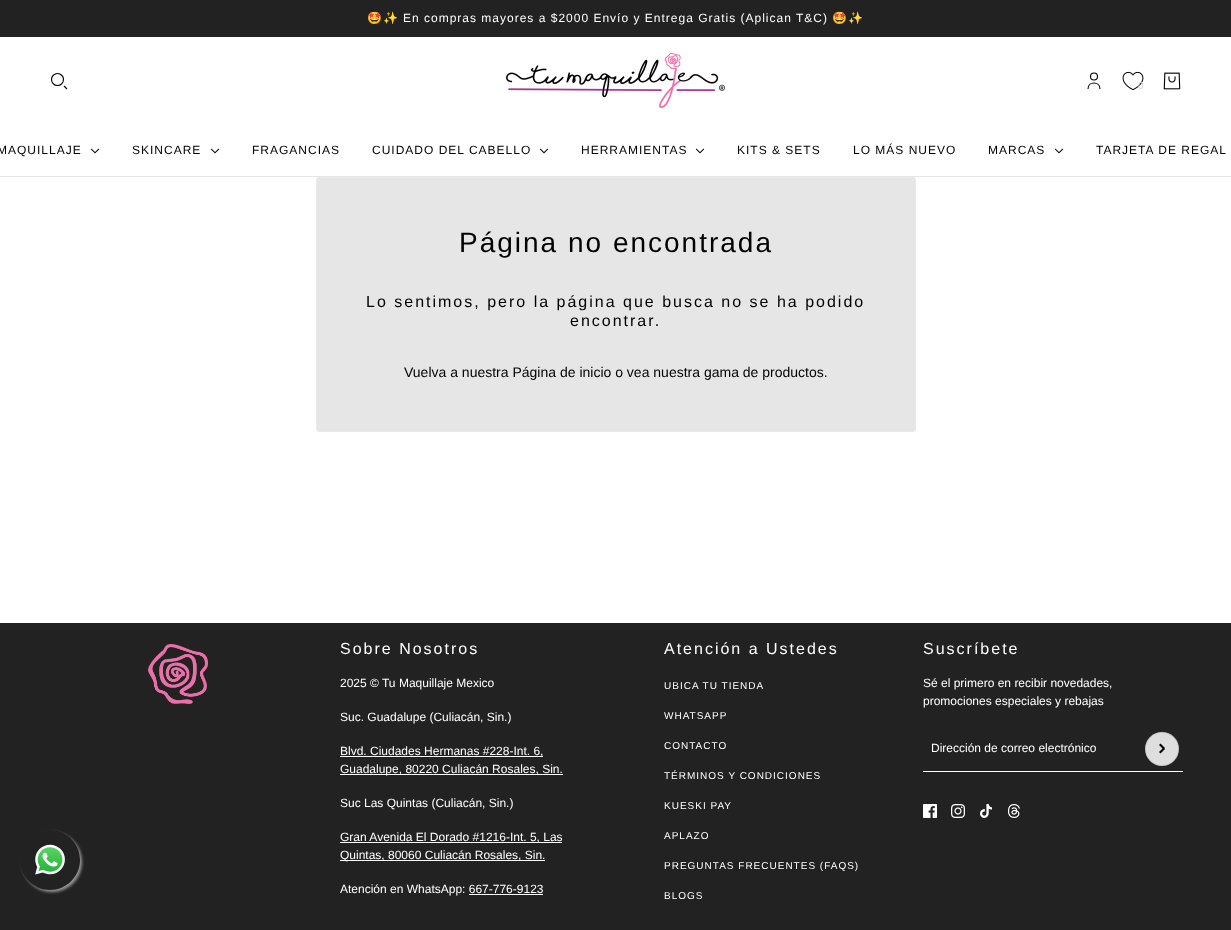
(async () => {
const canvas = document.querySelector("canvas")
canvas.width = 1231
canvas.height = 930
const c = canvas.getContext("2d")
c.miterLimit = 4
c.fontKerning = "normal"
function T(s,x,y){c.fillText(s,x,y)}
function R(x,y,w,h){c.fillRect(x,y,w,h)}
async function I(src,x,y,w,h){const img=new Image();img.src=src;await img.decode();c.drawImage(img,x,y,w,h)}
let path
c.fillStyle="#fff"
R(0,0,1231,930)
c.fillStyle="#222"
R(0,0,1231,37)
c.save()
c.beginPath()
c.rect(367,8,497,21)
c.clip()
c.letterSpacing="1px"
c.font="12px Noto Color Emoji"
c.fillStyle="#fff"
T("🤩✨",367,22)
c.restore()
c.letterSpacing="1px"
c.font="12px Liberation Sans"
c.fillStyle="#fff"
T("En compras mayores a $2000 Envío y Entrega Gratis (Aplican T&C)",403,22)
c.font="12px Noto Color Emoji"
T("🤩✨",832,22)
c.beginPath()
c.arc(57.5,79.5,6,0,7)
c.strokeStyle="#000"
c.lineWidth=1.1
c.stroke()
path = new Path2D("M64 86l3 3")
c.stroke(path)
await I("1.png",506,53,219,55)
c.beginPath()
c.arc(1094,76.5,3.5,0,7)
c.stroke()
path = new Path2D("M1088 89c0-8 12-8 12 0")
c.stroke(path)
await I("2.png",1122,71,22,20)
c.font="10px Liberation Sans"
c.fillStyle="#d3d3d3"
T("0",1138,89)
await I("3.png",1163,72,18,18)
c.font="12px Liberation Sans"
c.fillStyle="#000"
T("MAQUILLAJE",-3,154)
await I("4.png",90,148,10,6)
T("SKINCARE",132,154)
await I("4.png",210,148,10,6)
T("FRAGANCIAS",252,154)
T("CUIDADO DEL CABELLO",372,154)
await I("4.png",539,148,10,6)
T("HERRAMIENTAS",581,154)
await I("4.png",695,148,10,6)
T("KITS & SETS",737,154)
T("LO MÁS NUEVO",853,154)
T("MARCAS",988,154)
await I("4.png",1054,148,10,6)
T("TARJETA DE REGAL",1096,154)
c.fillStyle="#e6e6e6"
R(0,176,1231,1)
c.beginPath()
c.roundRect(316.5,177.5,599,254,2.5)
c.fill()
c.strokeStyle="#eaeaea"
c.lineWidth=1
c.stroke()
c.letterSpacing="2px"
c.font="28px Liberation Sans"
c.fillStyle="#000"
T("Página no encontrada",459,252)
c.font="16px Liberation Sans"
T("Lo sentimos, pero la página que busca no se ha podido",366,307)
T("encontrar.",570,326)
c.letterSpacing="0px"
c.font="14px Liberation Sans"
T("Vuelva a nuestra Página de inicio o vea nuestra gama de productos.",404,377)
c.fillStyle="#222"
R(0,623,1231,307)
await I("5.png",148,644,60,60)
c.letterSpacing="2px"
c.font="16px Liberation Sans"
c.fillStyle="#fff"
T("Sobre Nosotros",340,654)
c.letterSpacing="0px"
c.font="12px Liberation Sans"
T("2025 © Tu Maquillaje Mexico",340,687)
T("Suc. Guadalupe (Culiacán, Sin.)",340,721)
R(340,756,203,1)
T("Blvd. Ciudades Hermanas #228-Int. 6,",340,755)
R(340,774,223,1)
T("Guadalupe, 80220 Culiacán Rosales, Sin.",340,773)
T("Suc Las Quintas (Culiacán, Sin.)",340,807)
R(340,842,222,1)
T("Gran Avenida El Dorado #1216-Int. 5, Las",340,841)
R(340,860,205,1)
T("Quintas, 80060 Culiacán Rosales, Sin.",340,859)
T("Atención en WhatsApp: 667-776-9123",340,893)
R(469,894,74,1)
c.letterSpacing="2px"
c.font="16px Liberation Sans"
T("Atención a Ustedes",664,654)
c.letterSpacing="1px"
c.font="10px Liberation Sans"
T("UBICA TU TIENDA",664,689)
T("WHATSAPP",664,719)
T("CONTACTO",664,749)
T("TÉRMINOS Y CONDICIONES",664,779)
T("KUESKI PAY",664,809)
T("APLAZO",664,839)
T("PREGUNTAS FRECUENTES (FAQS)",664,869)
T("BLOGS",664,899)
c.letterSpacing="2px"
c.font="16px Liberation Sans"
T("Suscríbete",923,654)
c.letterSpacing="0px"
c.font="12px Liberation Sans"
T("Sé el primero en recibir novedades,",923,687)
T("promociones especiales y rebajas",923,705)
R(923,771,260,1)
T("Dirección de correo electrónico",931,752)
c.fillStyle="#dedede"
c.beginPath()
c.arc(1162,749,17,0,7)
c.fill()
c.beginPath()
c.arc(1162,749,16.5,0,7)
c.strokeStyle="#0505051a"
c.stroke()
c.fillStyle="#050505"
path = new Path2D("M1159 752l4.5-4.5l1.5 1.5l-4.5 4.5z")
c.fill(path)
path = new Path2D("M1160.5 743.5l4.5 4.5l-1.5 1.5l-4.5-4.5z")
c.fill(path)
await I("6.png",923,804,14,14)
await I("7.png",951,804,14,14)
await I("8.png",980,804,12,14)
await I("9.png",1008,804,12,14)
c.save()
path = new Path2D("M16 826h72v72h-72zm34 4c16.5 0 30 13.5 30 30c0 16.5-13.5 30-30 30c-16.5 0-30-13.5-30-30c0-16.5 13.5-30 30-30z")
c.clip(path,"evenodd")
c.fillStyle="#999"
c.filter="blur(1.5px)"
c.beginPath()
c.roundRect(22,832,60,60,30)
c.fill()
c.filter="none"
c.restore()
await I("10.png",35,844,30,31)
})()
